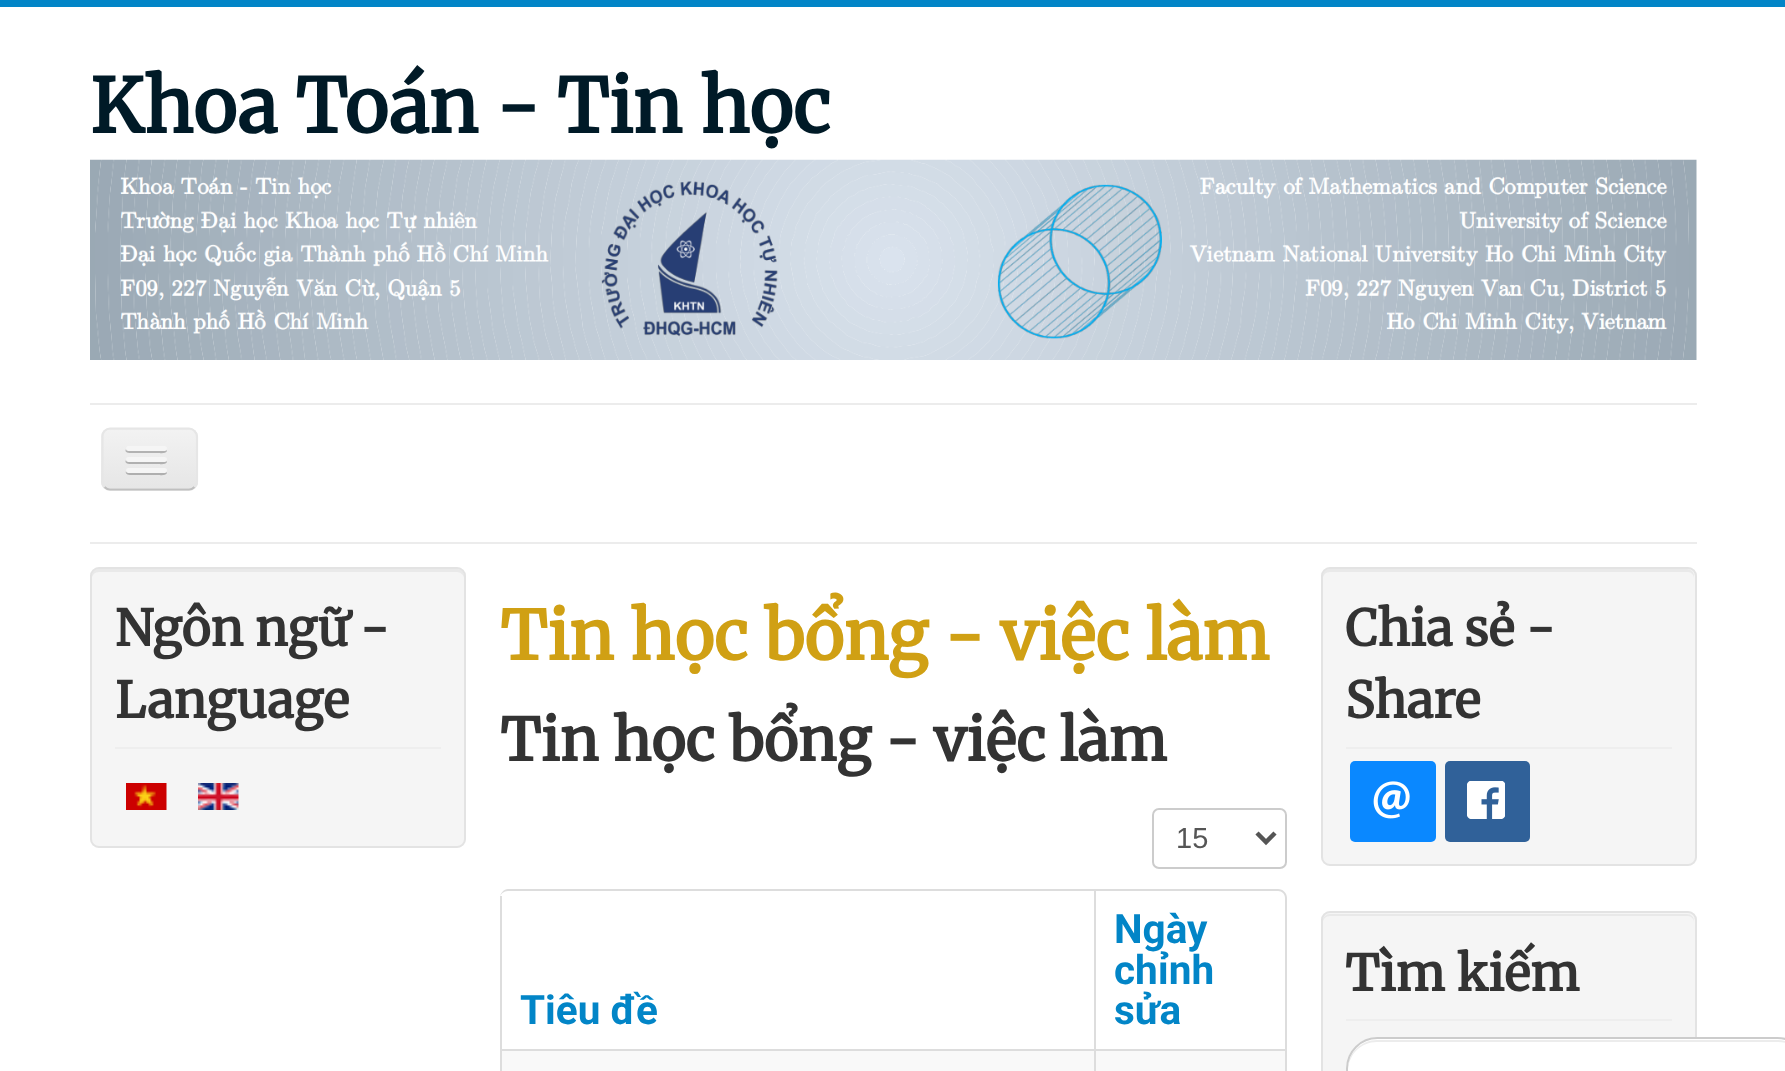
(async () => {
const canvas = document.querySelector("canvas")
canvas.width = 1785
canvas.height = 1071
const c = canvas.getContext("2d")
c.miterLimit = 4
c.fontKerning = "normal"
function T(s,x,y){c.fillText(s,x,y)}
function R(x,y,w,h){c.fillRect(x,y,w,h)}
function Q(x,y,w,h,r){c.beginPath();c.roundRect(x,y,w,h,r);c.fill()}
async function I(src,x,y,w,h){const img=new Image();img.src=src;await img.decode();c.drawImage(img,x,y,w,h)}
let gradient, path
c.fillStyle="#fff"
R(0,0,1785,1071)
c.fillStyle="#0285c7"
R(0,0,1785,7)
c.font="bold 74.5px Merriweather"
c.fillStyle="#001a27"
T("Khoa Toán - Tin học",90,133)
await I("1.png",90,159,1607,201)
c.fillStyle="#ececec"
R(90,403,1607,2)
R(90,542,1607,2)
c.fillStyle="#ededed"
Q(101,428,97,63,9)
c.save()
c.beginPath()
c.roundRect(101,428,97,63,9)
c.clip()
gradient = c.createLinearGradient(150,430,150,488)
gradient.addColorStop(0,"#f2f2f2")
gradient.addColorStop(1,"#e6e6e6")
c.fillStyle = gradient
R(101,430,97,58)
c.restore()
path = new Path2D("M194.5 487c-1.5 1.5-3.5 2.5-5.5 2.5h-79c-2 0-4-1-5.5-2.5")
c.strokeStyle="#bfbfbf"
c.lineWidth=2.2
c.stroke(path)
path = new Path2D("M104.5 487c-1.5-1.5-2-3.5-2-5.5v-45c0-2 .5-4 2-5.5c1.5-1.5 3.5-2.5 5.5-2.5h79c2 0 4 1 5.5 2.5c1.5 1.5 2.5 3.5 2.5 5.5v45c0 2-1 4-2.5 5.5")
c.strokeStyle="#e6e6e6"
c.stroke(path)
c.fillStyle="#b2b2b2"
path = new Path2D("M126 449c-3 5 8 4 8 4h24c2 0 8 1 9-2l-1-2l-1 1h-37z")
c.fill(path)
c.fillStyle="#f5f5f5"
Q(126,446,41,5,2.5)
c.fillStyle="#b0b0b0"
path = new Path2D("M126 460c-3 5 8 4 8 4h24c2 0 8 1 9-2l-1-2l-1 1h-37z")
c.fill(path)
c.fillStyle="#f5f5f5"
Q(126,457,41,5,2.5)
c.fillStyle="#afafaf"
path = new Path2D("M126 471c-2 5 8 4 8 4h24c2 0 8 1 9-2l-1-2c0 1-1 1-2 1h-36c-1 0-1 0-2-1z")
c.fill(path)
c.fillStyle="#f5f5f5"
Q(126,468,41,5,2.5)
Q(90,567,376,281,9)
c.fillStyle="#e9e9e9"
path = new Path2D("M99 572h358c3 0 7 3 7 6v-2c0-4-3-7-7-7h-358c-4 0-7 3-7 7v2c0-3 3-6 7-6z")
c.fill(path)
c.beginPath()
c.roundRect(91,568,374,279,8)
c.strokeStyle="#e3e3e3"
c.lineWidth=2
c.stroke()
c.fillStyle="#eee"
R(115,747,326,2)
c.font="bold 49.5px Merriweather"
c.fillStyle="#333"
T("Ngôn ngữ -",115,646)
T("Language",115,718)
await I("2.png",126,783,41,27)
await I("3.png",198,783,41,27)
c.font="bold 67.5px Merriweather"
c.fillStyle="#d0a014"
T("Tin học bổng - việc làm",500,660)
c.font="bold 58.5px Merriweather"
c.fillStyle="#333"
T("Tin học bổng - việc làm",500,761)
c.beginPath()
c.roundRect(1153,809,133,59,6)
c.strokeStyle="#ccc"
c.stroke()
path = new Path2D("M1257 833l9 9l9-9")
c.strokeStyle="#555"
c.lineWidth=4.5
c.stroke(path)
c.font="29px Liberation Sans"
c.fillStyle="#555"
T("15",1176,848)
c.fillStyle="#ddd"
path = new Path2D("M508 889h770c5 0 9 4 9 9v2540c0 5-4 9-9 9h-770c-4 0-8-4-8-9v-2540c0-5 4-9 8-9zm0 2h770c4 0 7 3 7 7v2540c0 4-3 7-7 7h-770c-4 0-8-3-8-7v-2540c0-4 4-7 8-7z")
c.fill(path,"evenodd")
R(500,896,2,153)
c.font="bold 40.5px Roboto"
c.fillStyle="#0285c7"
T("Tiêu đề",520,1024)
c.fillStyle="#ddd"
R(1094,891,2,158)
c.fillStyle="#0285c7"
T("Ngày",1114,943)
T("chỉnh",1114,984)
T("sửa",1114,1024)
c.fillStyle="#f9f9f9"
R(502,1051,592,20)
c.fillStyle="#ddd"
R(500,1049,785,2)
R(500,1049,2,22)
c.fillStyle="#f9f9f9"
R(1096,1051,189,20)
c.fillStyle="#ddd"
R(1094,1049,2,22)
c.fillStyle="#f5f5f5"
Q(1321,567,376,299,9)
c.fillStyle="#e9e9e9"
path = new Path2D("M1330 572h358c3 0 6 3 6 6v-2c0-4-3-7-7-7h-357c-4 0-7 3-7 7v2c0-3 3-6 7-6z")
c.fill(path)
c.beginPath()
c.roundRect(1322,568,374,297,8)
c.strokeStyle="#e3e3e3"
c.lineWidth=2
c.stroke()
c.fillStyle="#eee"
R(1346,747,326,2)
c.font="bold 49.5px Merriweather"
c.fillStyle="#333"
T("Chia sẻ -",1345,646)
T("Share",1345,718)
c.fillStyle="#0a88ff"
Q(1350,761,86,81,5)
await I("4.png",1373,781,37,38)
c.fillStyle="#306199"
Q(1445,761,85,81,5)
await I("5.png",1467,781,38,38)
c.fillStyle="#f5f5f5"
Q(1321,911,376,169,9)
c.fillStyle="#e9e9e9"
path = new Path2D("M1330 916h358c3 0 6 3 6 6v-1c0-4-3-7-7-7h-357c-4 0-7 3-7 7v1c0-3 3-6 7-6z")
c.fill(path)
c.beginPath()
c.roundRect(1322,912,374,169,8)
c.stroke()
c.fillStyle="#eee"
R(1346,1019,326,2)
c.fillStyle="#333"
T("Tìm kiếm",1345,991)
c.fillStyle="#fff"
Q(1346,1037,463,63,31.5)
c.fillStyle="#ececec"
path = new Path2D("M1377 1042h401c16 0 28 12 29 28c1-16-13-30-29-30h-401c-16 0-30 14-29 30c1-16 13-28 29-28z")
c.fill(path)
c.beginPath()
c.roundRect(1347,1038,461,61,30.5)
c.strokeStyle="#ccc"
c.stroke()
})()
